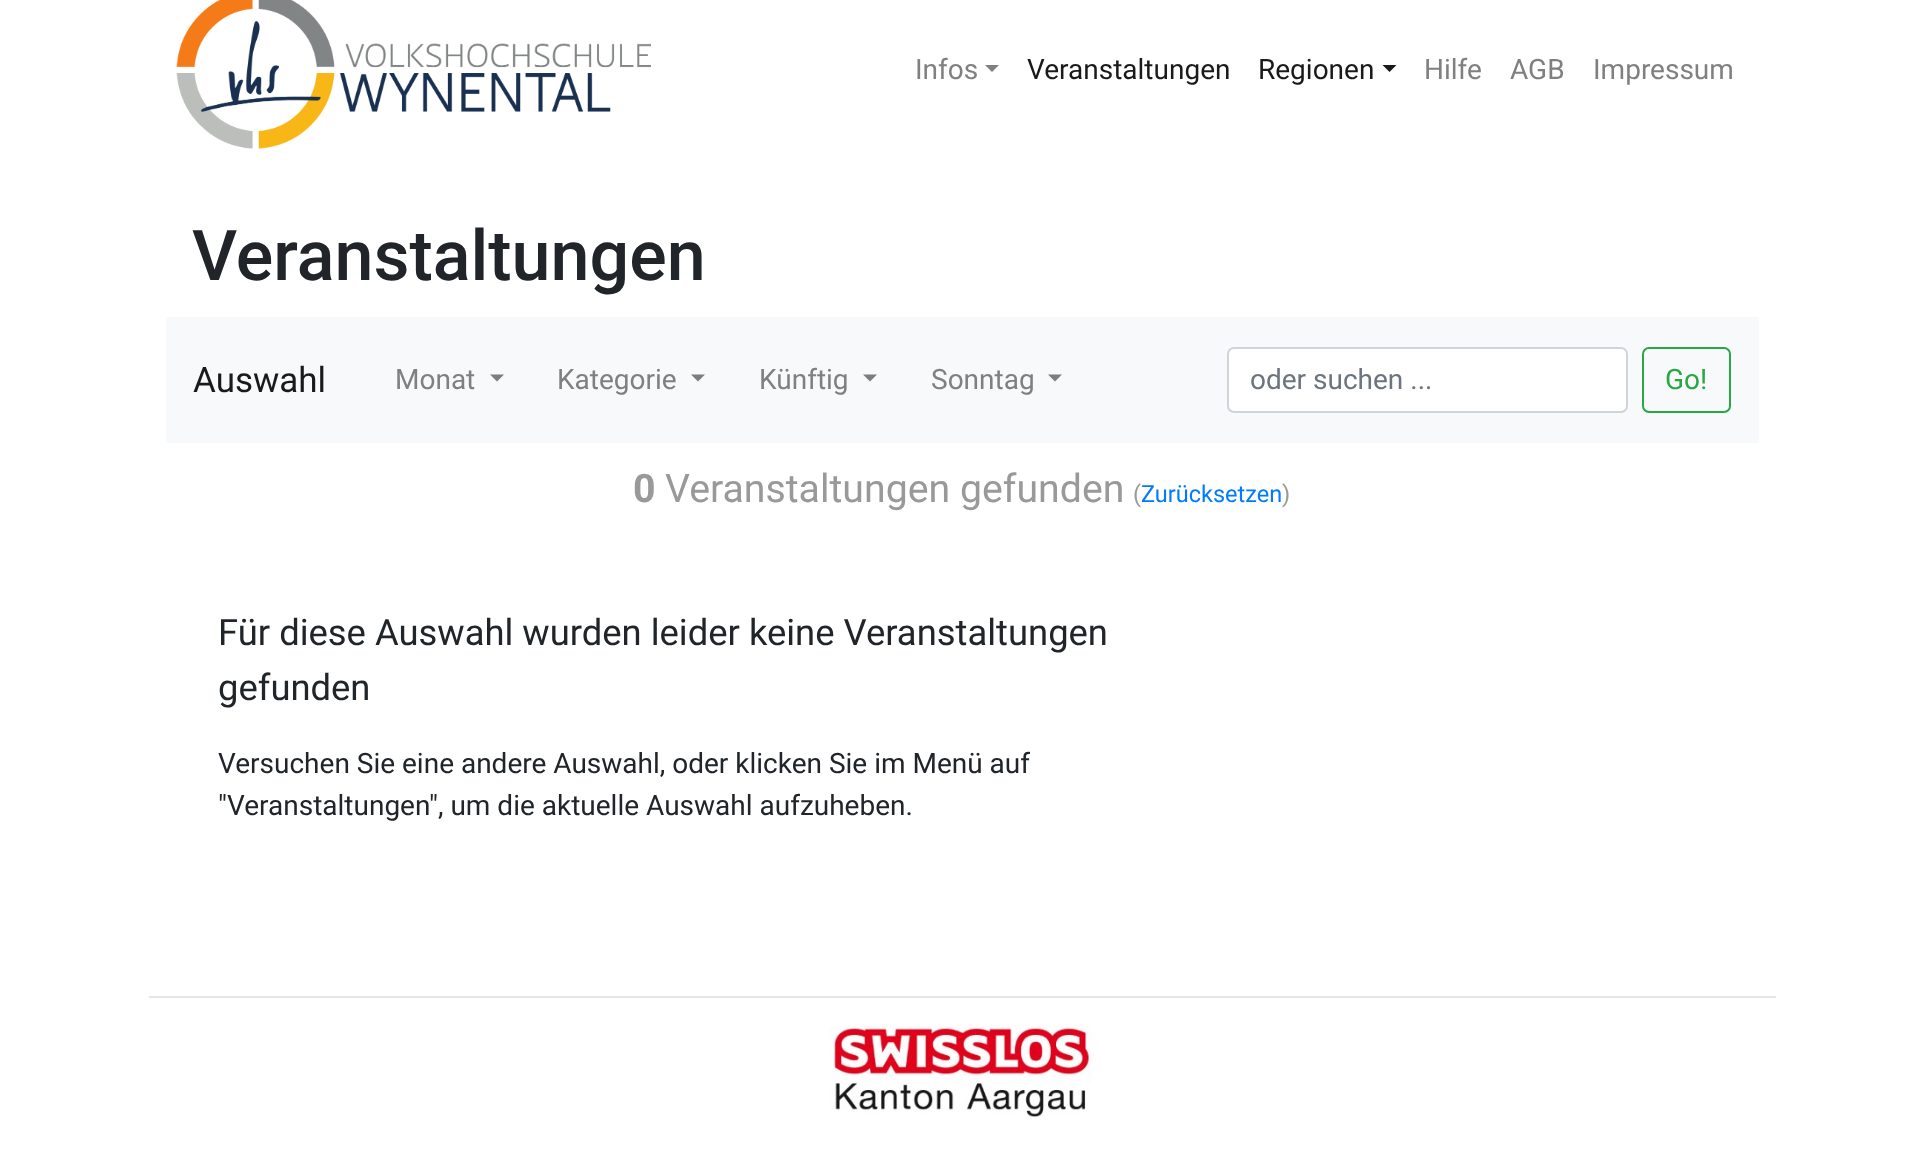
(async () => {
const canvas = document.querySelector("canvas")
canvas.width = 1922
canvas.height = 1153
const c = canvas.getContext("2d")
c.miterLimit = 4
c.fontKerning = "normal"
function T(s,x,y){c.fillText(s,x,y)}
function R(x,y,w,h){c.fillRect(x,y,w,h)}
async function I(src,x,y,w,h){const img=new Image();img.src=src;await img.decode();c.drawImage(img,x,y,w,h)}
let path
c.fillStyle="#fff"
R(0,0,1922,1153)
await I("1.png",176,0,475,149)
c.font="28px Roboto"
c.fillStyle="#808080"
T("Infos",915,79)
path = new Path2D("M985 65h14l-7 7z")
c.fill(path)
c.fillStyle="#1a1a1a"
T("Veranstaltungen",1027,79)
T("Regionen",1258,79)
path = new Path2D("M1382.5 65h14l-7 7z")
c.fill(path)
c.fillStyle="#808080"
T("Hilfe",1424,79)
T("AGB",1510,79)
T("Impressum",1593,79)
c.font="500 70px Roboto"
c.fillStyle="#212529"
T("Veranstaltungen",192,280)
c.fillStyle="#f8f9fa"
R(166,317,1593,126)
c.font="35px Roboto"
c.fillStyle="#1a1a1a"
T("Auswahl",193,392)
c.font="28px Roboto"
c.fillStyle="#808080"
T("Monat",395,389)
c.fillStyle="#7c7d7d"
path = new Path2D("M490 374.5h14l-7 7z")
c.fill(path)
c.fillStyle="#808080"
T("Kategorie",557,389)
c.fillStyle="#7c7d7d"
path = new Path2D("M691 374.5h14l-7 7z")
c.fill(path)
c.fillStyle="#808080"
T("Künftig",759,389)
c.fillStyle="#7c7d7d"
path = new Path2D("M863 374.5h14l-7 7z")
c.fill(path)
c.fillStyle="#808080"
T("Sonntag",931,389)
c.fillStyle="#7c7d7d"
path = new Path2D("M1048 374.5h14l-7 7z")
c.fill(path)
c.fillStyle="#fff"
c.beginPath()
c.roundRect(1228,348,399,64,6)
c.fill()
c.strokeStyle="#ced4da"
c.lineWidth=2
c.stroke()
c.fillStyle="#6c757d"
T("oder suchen ...",1250,389)
c.beginPath()
c.roundRect(1643,348,87,64,6)
c.strokeStyle="#28a745"
c.stroke()
c.fillStyle="#28a745"
T("Go!",1665,389)
c.font="bold 39.25px Roboto"
c.fillStyle="#999"
T("0",633,502)
c.font="39.25px Roboto"
T("Veranstaltungen gefunden",665,502)
c.font="23.5px Roboto"
T("(",1133,502)
c.fillStyle="#007bff"
T("Zurücksetzen",1141,502)
c.fillStyle="#999"
T(")",1282,502)
c.font="36.4px Roboto"
c.fillStyle="#212529"
T("Für diese Auswahl wurden leider keine Veranstaltungen",218,645)
T("gefunden",218,700)
c.font="28px Roboto"
T("Versuchen Sie eine andere Auswahl, oder klicken Sie im Menü auf",218,773)
T("\"Veranstaltungen\", um die aktuelle Auswahl aufzuheben.",218,815)
c.fillStyle="#e6e6e6"
R(149,996,1627,2)
await I("2.png",829,1025,263,93)
})()
